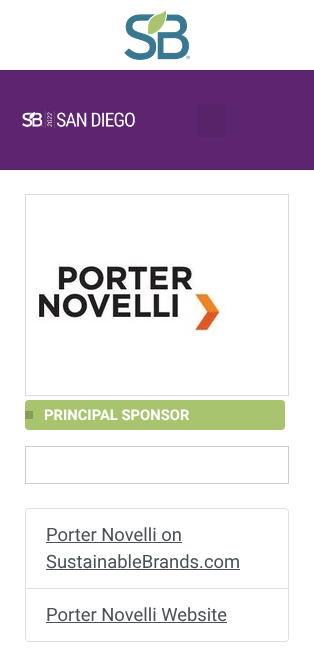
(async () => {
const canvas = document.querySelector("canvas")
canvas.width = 314
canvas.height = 650
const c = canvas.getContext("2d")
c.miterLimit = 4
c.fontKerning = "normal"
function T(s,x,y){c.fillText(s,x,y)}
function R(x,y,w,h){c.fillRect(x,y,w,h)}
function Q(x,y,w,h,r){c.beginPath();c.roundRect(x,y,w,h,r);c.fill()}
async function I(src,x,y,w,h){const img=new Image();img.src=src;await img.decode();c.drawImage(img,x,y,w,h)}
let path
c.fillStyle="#fff"
R(0,0,314,650)
await I("1.png",124,10,66,50)
c.fillStyle="#5d256f"
R(0,70,314,100)
await I("2.png",22,111,113,18)
c.fillStyle="#582369"
Q(197,104,29,33,3)
c.strokeStyle="#dadada"
c.strokeRect(25.5,194.5,263,201)
await I("3.png",34,260,192,79)
c.fillStyle="#a9c46f"
Q(25,400,260,30,4)
c.fillStyle="#879d59"
R(25,411,8,8)
c.font="bold 14.75px Roboto"
c.fillStyle="#fff"
T("PRINCIPAL SPONSOR",44,420)
c.strokeStyle="#ccc"
c.strokeRect(25.5,446.5,263,37)
c.beginPath()
c.roundRect(25.5,508.5,263,80,[3.5,3.5,0,0])
c.strokeStyle="#dfdfdf"
c.stroke()
c.font="18.4px Roboto"
c.fillStyle="#495057"
T("Porter Novelli on",46,541)
R(46,542,136,1)
T("SustainableBrands.com",46,568)
R(46,569,194,1)
c.fillStyle="#dfdfdf"
path = new Path2D("M25 589h264v49c0 2-2 4-4 4h-256c-2 0-4-2-4-4zm1 0h262v49c0 2-1 3-3 3h-256c-2 0-3-1-3-3z")
c.fill(path,"evenodd")
c.fillStyle="#495057"
T("Porter Novelli Website",46,621)
R(46,622,181,1)
})()
